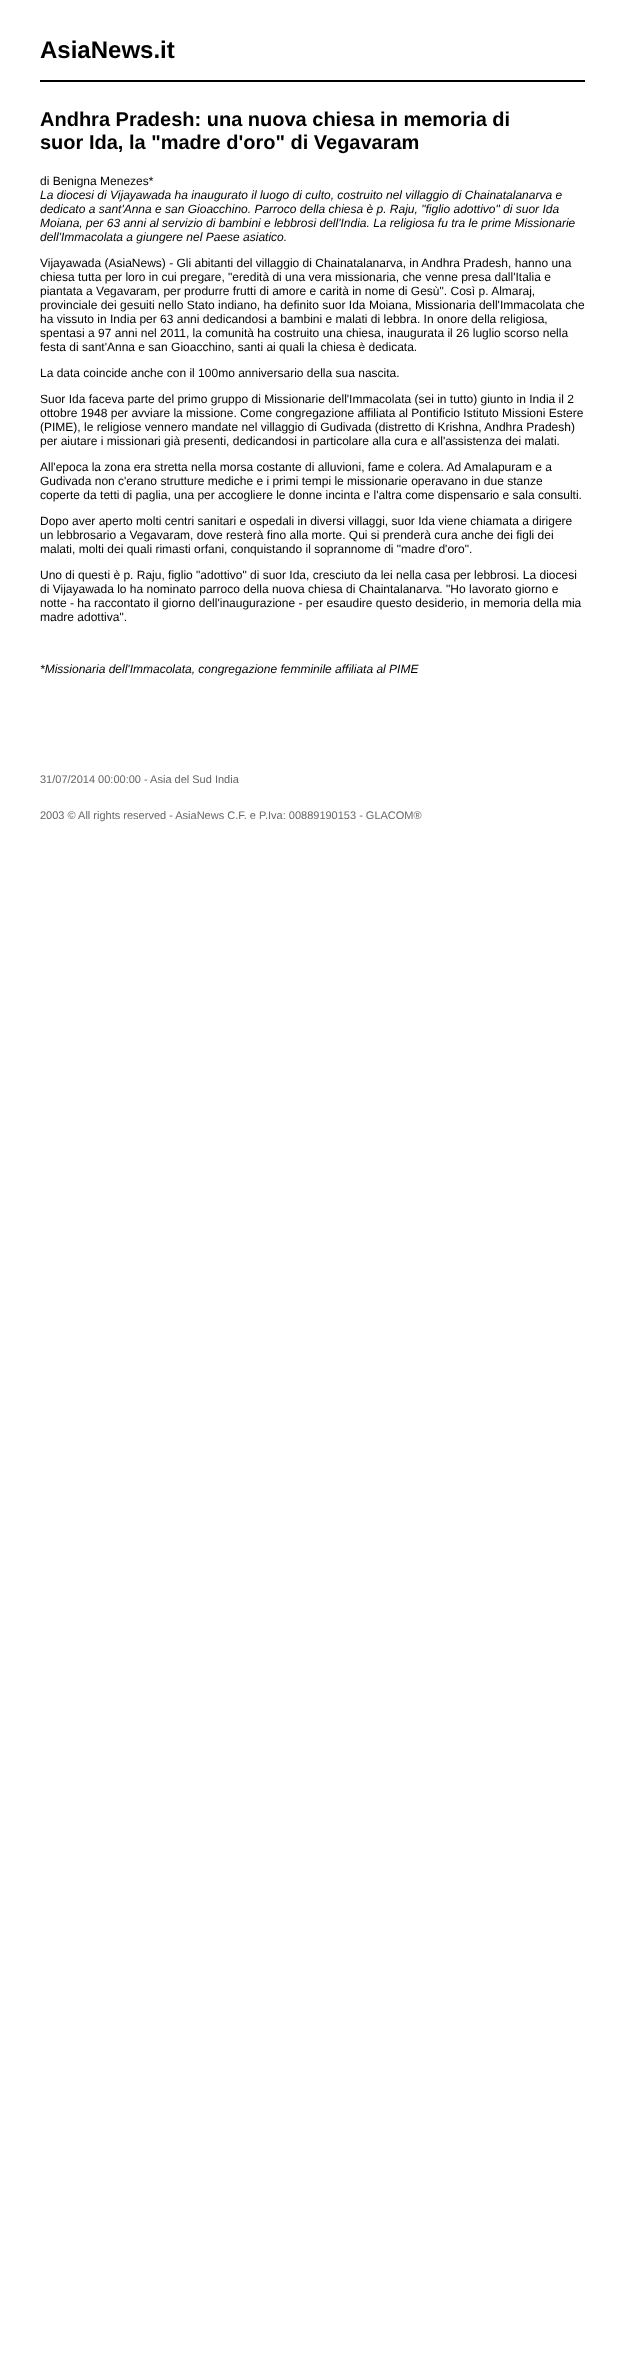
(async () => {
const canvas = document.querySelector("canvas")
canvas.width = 625
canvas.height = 2380
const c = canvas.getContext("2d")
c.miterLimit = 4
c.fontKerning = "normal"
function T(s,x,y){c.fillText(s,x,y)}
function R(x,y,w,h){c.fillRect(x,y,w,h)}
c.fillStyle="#fff"
R(0,0,625,2380)
c.font="bold 24px Liberation Sans"
c.fillStyle="#000"
T("AsiaNews.it",40,58)
R(40,80,545,2)
c.font="bold 20px Liberation Sans"
T("Andhra Pradesh: una nuova chiesa in memoria di",40,126)
T("suor Ida, la \"madre d'oro\" di Vegavaram",40,149)
c.font="12px Liberation Sans"
T("di Benigna Menezes*",40,185)
c.font="italic 12px Liberation Sans"
T("La diocesi di Vijayawada ha inaugurato il luogo di culto, costruito nel villaggio di Chainatalanarva e",40,199)
T("dedicato a sant'Anna e san Gioacchino. Parroco della chiesa è p. Raju, \"figlio adottivo\" di suor Ida",40,213)
T("Moiana, per 63 anni al servizio di bambini e lebbrosi dell'India. La religiosa fu tra le prime Missionarie",40,227)
T("dell'Immacolata a giungere nel Paese asiatico.",40,241)
c.font="12px Liberation Sans"
T("Vijayawada (AsiaNews) - Gli abitanti del villaggio di Chainatalanarva, in Andhra Pradesh, hanno una",40,267)
T("chiesa tutta per loro in cui pregare, \"eredità di una vera missionaria, che venne presa dall'Italia e",40,281)
T("piantata a Vegavaram, per produrre frutti di amore e carità in nome di Gesù\". Così p. Almaraj,",40,295)
T("provinciale dei gesuiti nello Stato indiano, ha definito suor Ida Moiana, Missionaria dell'Immacolata che",40,309)
T("ha vissuto in India per 63 anni dedicandosi a bambini e malati di lebbra. In onore della religiosa,",40,323)
T("spentasi a 97 anni nel 2011, la comunità ha costruito una chiesa, inaugurata il 26 luglio scorso nella",40,337)
T("festa di sant'Anna e san Gioacchino, santi ai quali la chiesa è dedicata.",40,351)
T("La data coincide anche con il 100mo anniversario della sua nascita.",40,377)
T("Suor Ida faceva parte del primo gruppo di Missionarie dell'Immacolata (sei in tutto) giunto in India il 2",40,403)
T("ottobre 1948 per avviare la missione. Come congregazione affiliata al Pontificio Istituto Missioni Estere",40,417)
T("(PIME), le religiose vennero mandate nel villaggio di Gudivada (distretto di Krishna, Andhra Pradesh)",40,431)
T("per aiutare i missionari già presenti, dedicandosi in particolare alla cura e all'assistenza dei malati.",40,445)
T("All'epoca la zona era stretta nella morsa costante di alluvioni, fame e colera. Ad Amalapuram e a",40,471)
T("Gudivada non c'erano strutture mediche e i primi tempi le missionarie operavano in due stanze",40,485)
T("coperte da tetti di paglia, una per accogliere le donne incinta e l'altra come dispensario e sala consulti.",40,499)
T("Dopo aver aperto molti centri sanitari e ospedali in diversi villaggi, suor Ida viene chiamata a dirigere",40,525)
T("un lebbrosario a Vegavaram, dove resterà fino alla morte. Qui si prenderà cura anche dei figli dei",40,539)
T("malati, molti dei quali rimasti orfani, conquistando il soprannome di \"madre d'oro\".",40,553)
T("Uno di questi è p. Raju, figlio \"adottivo\" di suor Ida, cresciuto da lei nella casa per lebbrosi. La diocesi",40,579)
T("di Vijayawada lo ha nominato parroco della nuova chiesa di Chaintalanarva. \"Ho lavorato giorno e",40,593)
T("notte - ha raccontato il giorno dell'inaugurazione - per esaudire questo desiderio, in memoria della mia",40,607)
T("madre adottiva\".",40,621)
c.font="italic 12px Liberation Sans"
T("*Missionaria dell'Immacolata, congregazione femminile affiliata al PIME",40,673)
c.font="11px Liberation Sans"
c.fillStyle="#666"
T("31/07/2014 00:00:00 - Asia del Sud India",40,783)
T("2003 © All rights reserved - AsiaNews C.F. e P.Iva: 00889190153 - GLACOM®",40,819)
})()
